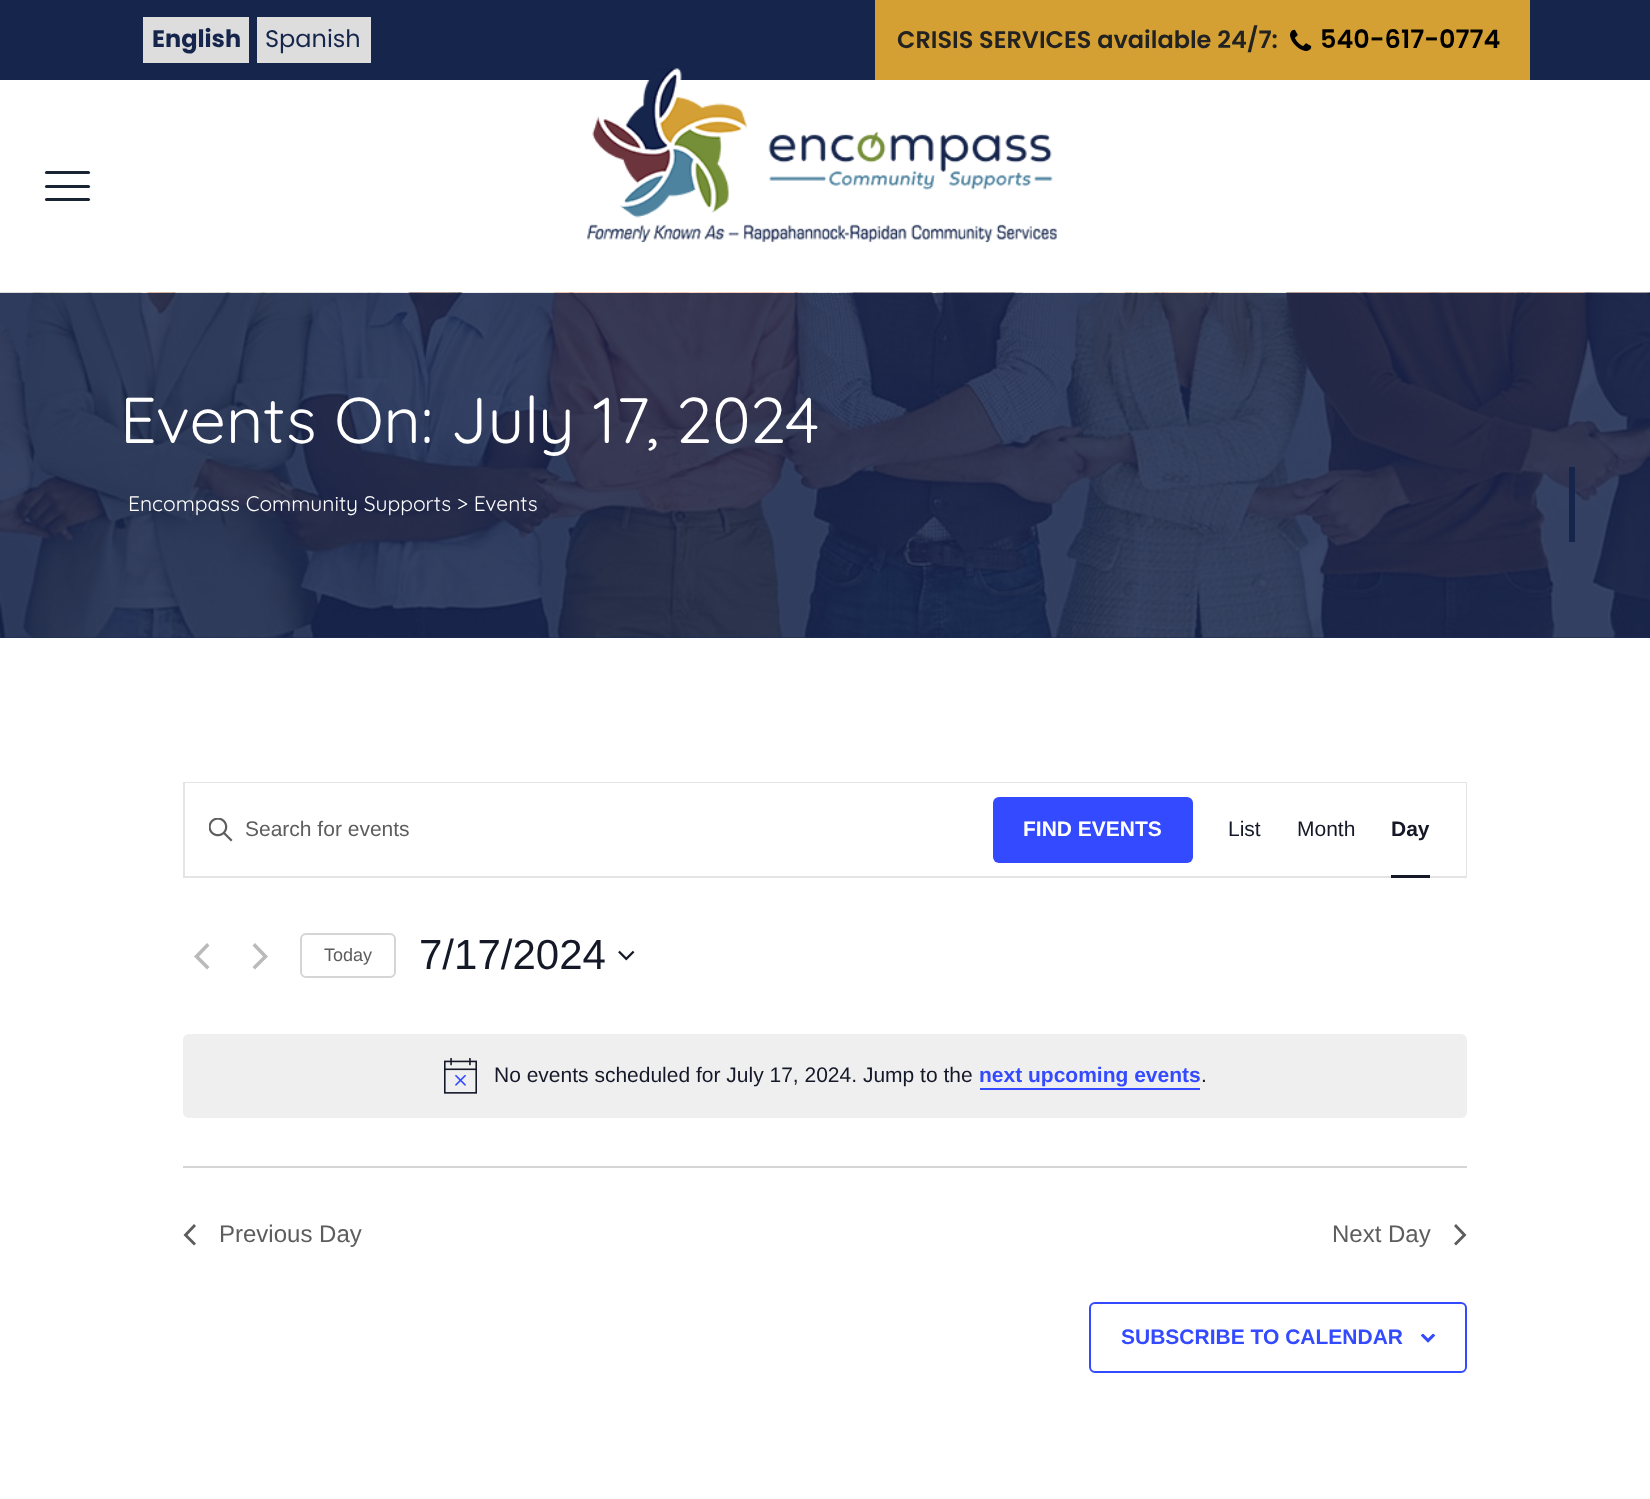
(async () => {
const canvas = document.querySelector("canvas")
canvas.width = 1650
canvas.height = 1499
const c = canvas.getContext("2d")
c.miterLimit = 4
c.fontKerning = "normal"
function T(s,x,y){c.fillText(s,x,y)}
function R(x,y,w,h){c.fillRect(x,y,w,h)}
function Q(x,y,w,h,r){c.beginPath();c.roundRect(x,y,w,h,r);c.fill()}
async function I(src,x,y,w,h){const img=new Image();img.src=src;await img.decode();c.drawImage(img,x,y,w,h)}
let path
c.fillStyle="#fff"
R(0,0,1650,1499)
c.fillStyle="#16254c"
R(0,0,1650,80)
c.fillStyle="#ddd"
R(143,17,106,46)
c.font="bold 24px Poppins"
c.fillStyle="#15254c"
T("English",152,47)
c.fillStyle="#ddd"
R(257,17,114,46)
c.font="24px Poppins"
c.fillStyle="#15254c"
T("Spanish",265,47)
c.fillStyle="#d4a033"
R(875,0,655,80)
c.font="600 24px Poppins"
c.fillStyle="#222"
T("CRISIS SERVICES available 24/7:",897,48)
await I("1.png",1290,29,22,22)
c.font="600 25.5px Poppins"
c.fillStyle="#000"
T("540-617-0774",1320,48)
c.fillStyle="#182333"
Q(45,185,45,3,1.5)
Q(45,171,45,3,1.5)
Q(45,198,45,3,1.5)
await I("2.png",587,68,470,175)
c.fillStyle="#1b2a50"
R(0,637,1650,1)
await I("3.png",0,292,1650,346)
c.font="64.5px Quicksand"
c.fillStyle="#fff"
T("Events On: July 17, 2024",120,443)
c.fillStyle="#16254c"
R(1569,467,6,75)
c.font="21px Quicksand"
c.fillStyle="#fff"
T("Encompass Community Supports > Events",128,511)
c.strokeStyle="#e4e4e4"
c.lineWidth=2
c.strokeRect(184,783,1282,94)
R(185,783,1008,1)
await I("4.png",209,818,24,24)
c.font="21px Liberation Sans"
c.fillStyle="#5d5d5d"
T("Search for events",245,836)
c.fillStyle="#334aff"
Q(993,797,200,66,6)
c.font="bold 21px Liberation Sans"
c.fillStyle="#fff"
T("FIND EVENTS",1023,836)
R(1193,783,273,93)
c.font="21px Liberation Sans"
c.fillStyle="#141827"
T("List",1228,836)
T("Month",1297,836)
c.font="bold 21px Liberation Sans"
T("Day",1391,836)
R(1391,875,39,3)
c.fillStyle="#bababa"
path = new Path2D("M209.5 967l-2.5 2.5l-13-13l13-13.5l2.5 2.5l-10.5 11z")
c.fill(path)
path = new Path2D("M252.5 945.5l2.5-2.5l13 13.5l-13 13l-2.5-2.5l10.5-10.5z")
c.fill(path)
c.beginPath()
c.roundRect(301,934,94,43,5)
c.strokeStyle="#d5d5d5"
c.stroke()
c.font="18px Liberation Sans"
c.fillStyle="#5d5d5d"
T("Today",324,961)
c.font="42px Liberation Sans"
c.fillStyle="#141827"
T("7/17/2024",419,969)
await I("5.png",618,950,17,11)
c.fillStyle="#efeff0"
Q(183,1034,1284,84,6)
await I("6.png",444,1058,33,36)
c.font="21px Liberation Sans"
c.fillStyle="#141827"
T("No events scheduled for July 17, 2024. Jump to the",494,1082)
c.font="bold 21px Liberation Sans"
c.fillStyle="#334aff"
T("next upcoming events",979,1082)
R(980,1088,220,2)
c.font="21px Liberation Sans"
c.fillStyle="#141827"
T(".",1201,1082)
c.fillStyle="#d5d5d5"
R(183,1166,1284,2)
c.fillStyle="#5d5d5d"
path = new Path2D("M196 1243.5l-2 2l-10.5-10.5l10.5-11l2 2l-8.5 9z")
c.fill(path)
c.font="24px Liberation Sans"
T("Previous Day",219,1242)
T("Next Day",1332,1242)
path = new Path2D("M1454 1226l2-2l10.5 11l-10.5 10.5l-2-2l8.5-8.5z")
c.fill(path)
c.beginPath()
c.roundRect(1090,1303,376,69,5)
c.strokeStyle="#334aff"
c.stroke()
c.font="bold 21px Liberation Sans"
c.fillStyle="#334aff"
T("SUBSCRIBE TO CALENDAR",1121,1344)
await I("7.png",1421,1334,15,9)
})()
